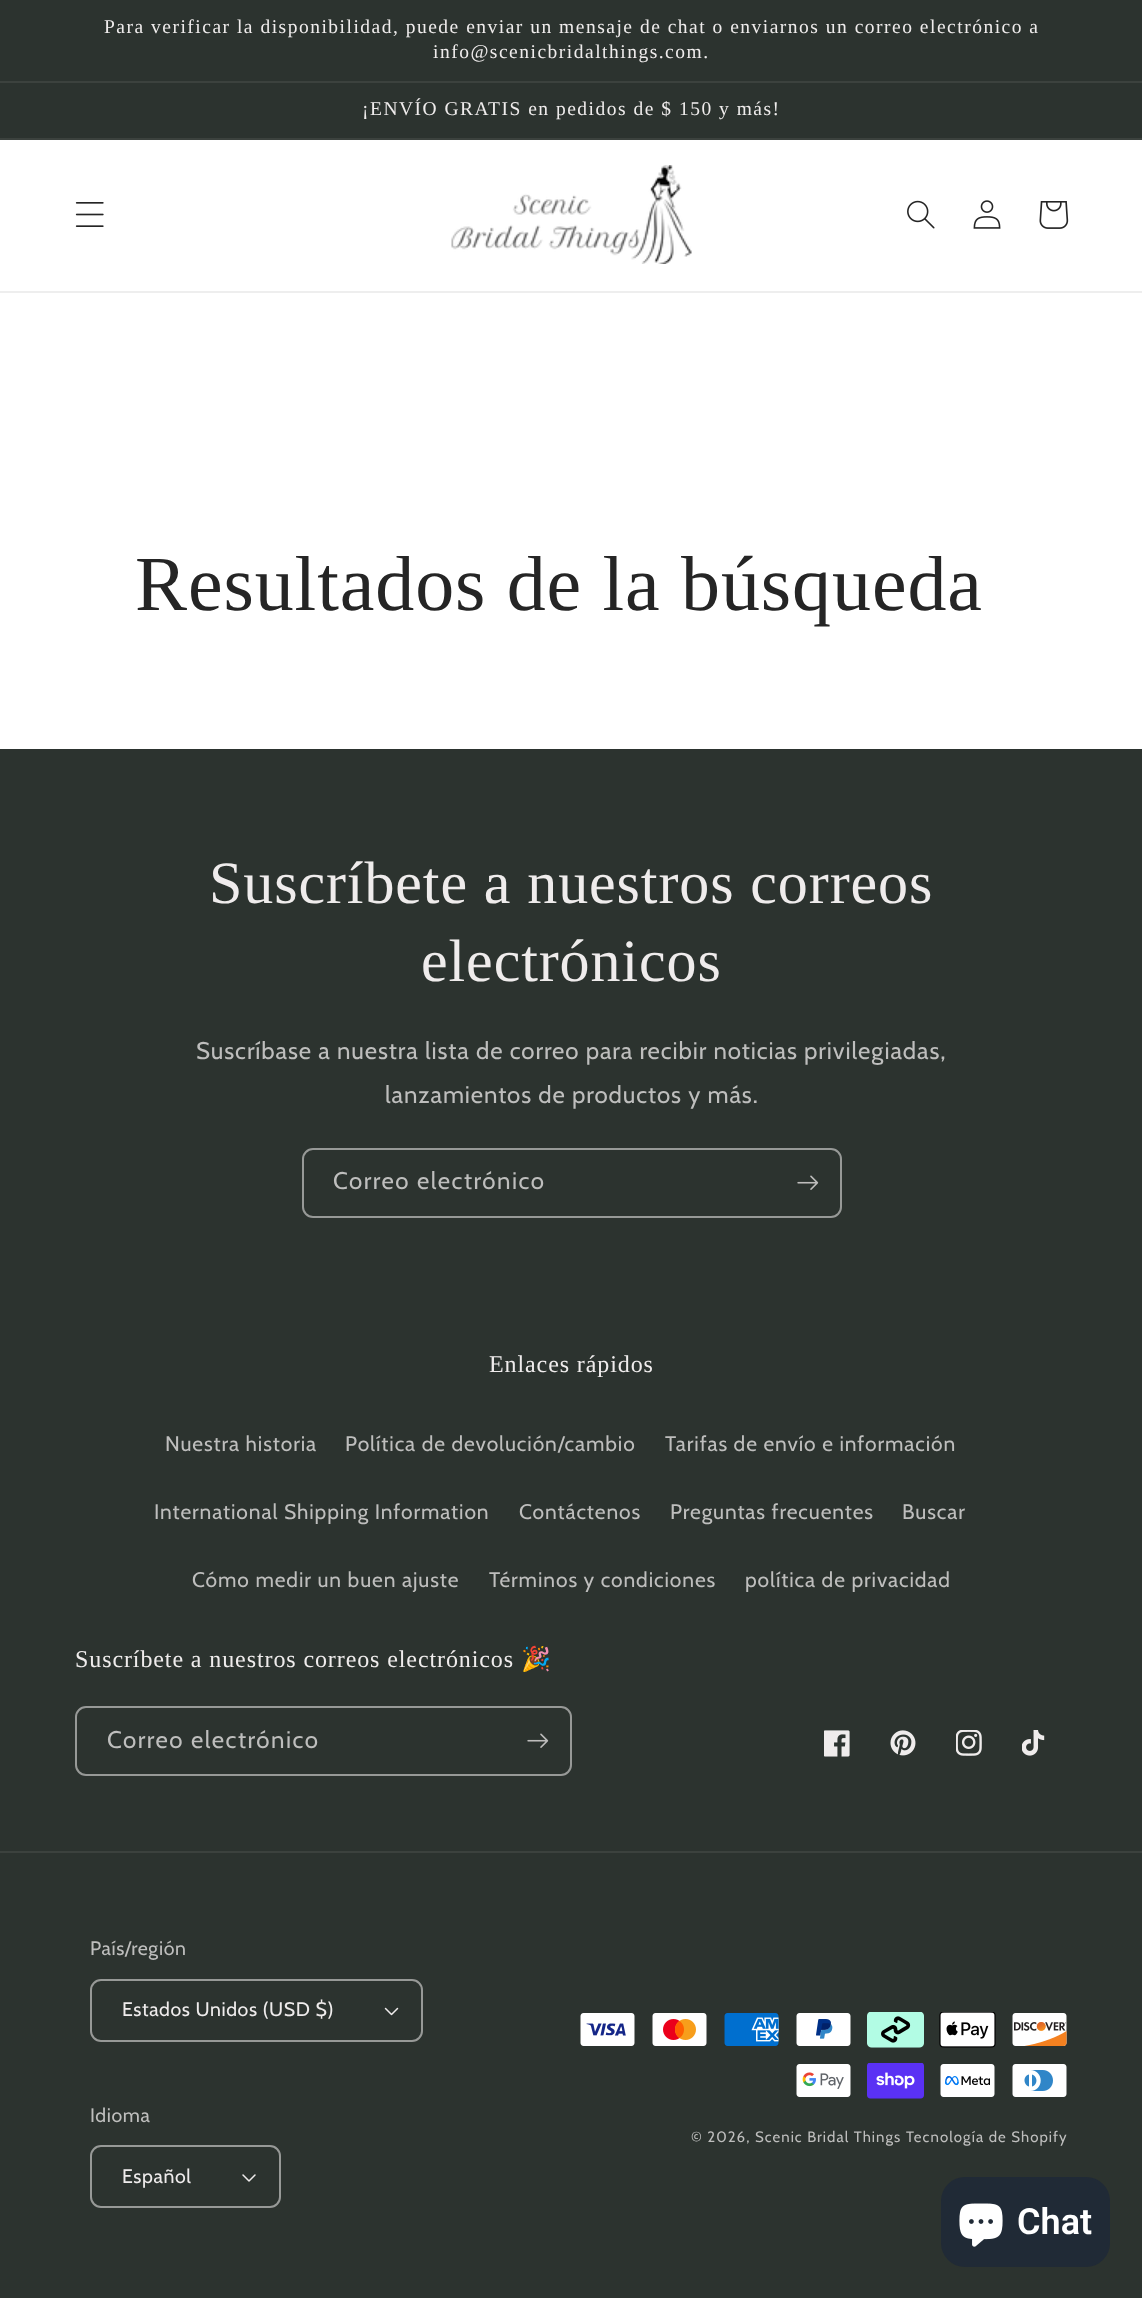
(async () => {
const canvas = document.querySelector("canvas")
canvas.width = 1142
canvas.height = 2298
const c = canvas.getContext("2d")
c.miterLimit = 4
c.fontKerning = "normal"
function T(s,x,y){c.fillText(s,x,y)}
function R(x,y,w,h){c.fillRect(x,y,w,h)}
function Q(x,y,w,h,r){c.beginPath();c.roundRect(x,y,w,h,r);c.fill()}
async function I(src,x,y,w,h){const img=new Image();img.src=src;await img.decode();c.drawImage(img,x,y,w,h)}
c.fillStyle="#fff"
R(0,0,1142,2298)
c.fillStyle="#2c332f"
R(0,0,1142,81)
c.fillStyle="#3c423e"
R(0,81,1142,2)
c.letterSpacing="1.5px"
c.font="19.5px Liberation Serif"
c.fillStyle="#efecec"
T("Para verificar la disponibilidad, puede enviar un mensaje de chat o enviarnos un correo electrónico a",104,33)
T("info@scenicbridalthings.com.",433,58)
c.fillStyle="#2c332f"
R(0,83,1142,55)
c.fillStyle="#3c423e"
R(0,138,1142,2)
c.fillStyle="#efecec"
T("¡ENVÍO GRATIS en pedidos de $ 150 y más!",362,115)
c.fillStyle="#eee"
R(0,291,1142,2)
await I("1.png",75,202,29,25)
await I("2.png",451,165,241,99)
await I("3.png",907,200,28,29)
await I("4.png",973,200,28,29)
await I("5.png",1039,201,30,28)
c.letterSpacing="0.9px"
c.font="78px Liberation Serif"
c.fillStyle="#252525"
T("Resultados de la búsqueda",135,610)
c.fillStyle="#2c332f"
R(0,749,1142,1549)
c.font="60px Liberation Serif"
c.fillStyle="#efecec"
T("Suscríbete a nuestros correos",209,903)
T("electrónicos",421,981)
c.font="24px Cabin"
c.fillStyle="#bebebd"
T("Suscríbase a nuestra lista de correo para recibir noticias privilegiadas,",196,1059)
T("lanzamientos de productos y más.",385,1103)
c.beginPath()
c.roundRect(303,1149,538,68,10)
c.strokeStyle="#979997"
c.lineWidth=2
c.stroke()
c.letterSpacing="1.5px"
T("Correo electrónico",333,1189)
await I("6.png",797,1175,22,15)
c.letterSpacing="0.9px"
c.font="24px Liberation Serif"
c.fillStyle="#efecec"
T("Enlaces rápidos",489,1372)
c.font="21px Cabin"
c.fillStyle="#bebebd"
T("Nuestra historia",165,1451)
T("Política de devolución/cambio",345,1451)
T("Tarifas de envío e información",665,1451)
T("International Shipping Information",154,1519)
T("Contáctenos",519,1519)
T("Preguntas frecuentes",670,1519)
T("Buscar",902,1519)
T("Cómo medir un buen ajuste",192,1587)
T("Términos y condiciones",489,1587)
T("política de privacidad",745,1587)
c.font="24px Liberation Serif"
c.fillStyle="#efecec"
T("Suscríbete a nuestros correos electrónicos",75,1667)
c.font="24px Noto Color Emoji"
T("🎉",521,1667)
c.beginPath()
c.roundRect(76,1707,495,68,10)
c.stroke()
c.letterSpacing="1.5px"
c.font="24px Cabin"
c.fillStyle="#bebebd"
T("Correo electrónico",107,1748)
await I("6.png",527,1733,22,15)
await I("7.png",824,1730,26,27)
await I("8.png",890,1730,26,26)
await I("9.png",956,1730,26,26)
await I("10.png",1022,1730,23,26)
c.fillStyle="#3c423e"
R(0,1851,1142,2)
c.letterSpacing="0.6px"
c.font="19.5px Cabin"
c.fillStyle="#bebebd"
T("País/región",90,1955)
await I("11.png",384,2007,15,9)
c.beginPath()
c.roundRect(91,1980,331,61,10)
c.stroke()
c.fillStyle="#efecec"
T("Estados Unidos (USD $)",122,2016)
c.fillStyle="#bebebd"
T("Idioma",90,2122)
await I("12.png",242,2174,14,8)
c.beginPath()
c.roundRect(91,2146,189,61,10)
c.stroke()
c.fillStyle="#efecec"
T("Español",122,2183)
await I("13.png",580,2013,55,33)
await I("14.png",652,2013,55,33)
await I("15.png",724,2013,55,33)
await I("16.png",796,2013,55,33)
await I("17.png",867,2012,57,36)
await I("18.png",939,2012,57,36)
await I("19.png",1012,2013,55,33)
await I("20.png",796,2064,55,33)
await I("21.png",867,2063,57,36)
await I("22.png",940,2064,55,33)
await I("23.png",1012,2064,55,33)
c.letterSpacing="1.05px"
c.font="15px Cabin"
c.fillStyle="#bebebd"
T("© 2026, Scenic Bridal Things",691,2142)
T("Tecnología de Shopify",906,2142)
c.fillStyle="#202a36"
Q(941,2177,169,90,24)
await I("24.png",959,2203,44,44)
c.letterSpacing="0px"
c.font="600 36px Roboto"
c.fillStyle="#fff"
T("Chat",1017,2234)
})()
